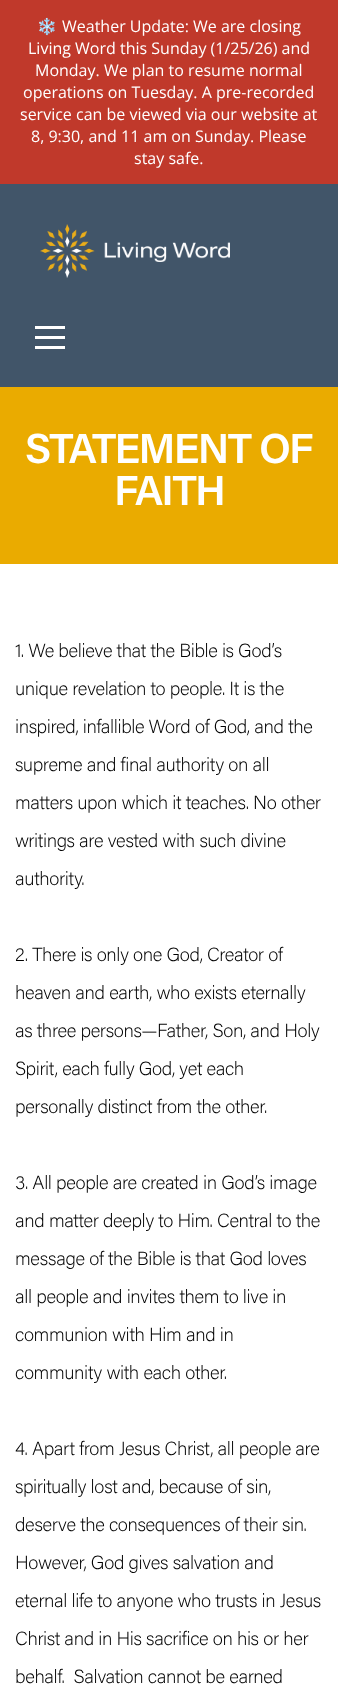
(async () => {
const canvas = document.querySelector("canvas")
canvas.width = 338
canvas.height = 1686
const c = canvas.getContext("2d")
c.miterLimit = 4
c.fontKerning = "normal"
function T(s,x,y){c.fillText(s,x,y)}
function R(x,y,w,h){c.fillRect(x,y,w,h)}
async function I(src,x,y,w,h){const img=new Image();img.src=src;await img.decode();c.drawImage(img,x,y,w,h)}
c.fillStyle="#415569"
R(0,0,338,1686)
c.fillStyle="#c0392b"
R(0,0,338,184)
c.font="16px Noto Color Emoji"
c.fillStyle="#fff"
T("❄️",37,32)
c.font="16px Open Sans"
T("Weather Update: We are closing",62,32)
T("Living Word this Sunday (1/25/26) and",28,54)
T("Monday. We plan to resume normal",35,76)
T("operations on Tuesday. A pre-recorded",23,98)
T("service can be viewed via our website at",20,120)
T("8, 9:30, and 11 am on Sunday. Please",31,142)
T("stay safe.",134,164)
await I("1.png",40,224,190,54)
R(35,326,30,3)
R(35,336,30,3)
R(35,346,30,3)
c.fillStyle="#eaab00"
R(0,387,338,177)
c.letterSpacing="-1.75px"
c.font="600 42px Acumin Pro"
c.fillStyle="#fff"
T("STATEMENT OF",25,463)
T("FAITH",114,505)
R(0,564,338,1122)
c.letterSpacing="-0.4px"
c.font="200 19px Acumin Pro"
c.fillStyle="#000"
T("1. We believe that the Bible is God’s",15,657)
T("unique revelation to people. It is the",15,695)
T("inspired, infallible Word of God, and the",15,733)
T("supreme and final authority on all",15,771)
T("matters upon which it teaches. No other",15,809)
T("writings are vested with such divine",15,847)
T("authority.",15,885)
T("2. There is only one God, Creator of",15,961)
T("heaven and earth, who exists eternally",15,999)
T("as three persons—Father, Son, and Holy",15,1037)
T("Spirit, each fully God, yet each",15,1075)
T("personally distinct from the other.",15,1113)
T("3. All people are created in God’s image",15,1189)
T("and matter deeply to Him. Central to the",15,1227)
T("message of the Bible is that God loves",15,1265)
T("all people and invites them to live in",15,1303)
T("communion with Him and in",15,1341)
T("community with each other.",15,1379)
T("4. Apart from Jesus Christ, all people are",15,1455)
T("spiritually lost and, because of sin,",15,1493)
T("deserve the consequences of their sin.",15,1531)
T("However, God gives salvation and",15,1569)
T("eternal life to anyone who trusts in Jesus",15,1607)
T("Christ and in His sacrifice on his or her",15,1645)
T("behalf.  Salvation cannot be earned",15,1683)
})()
